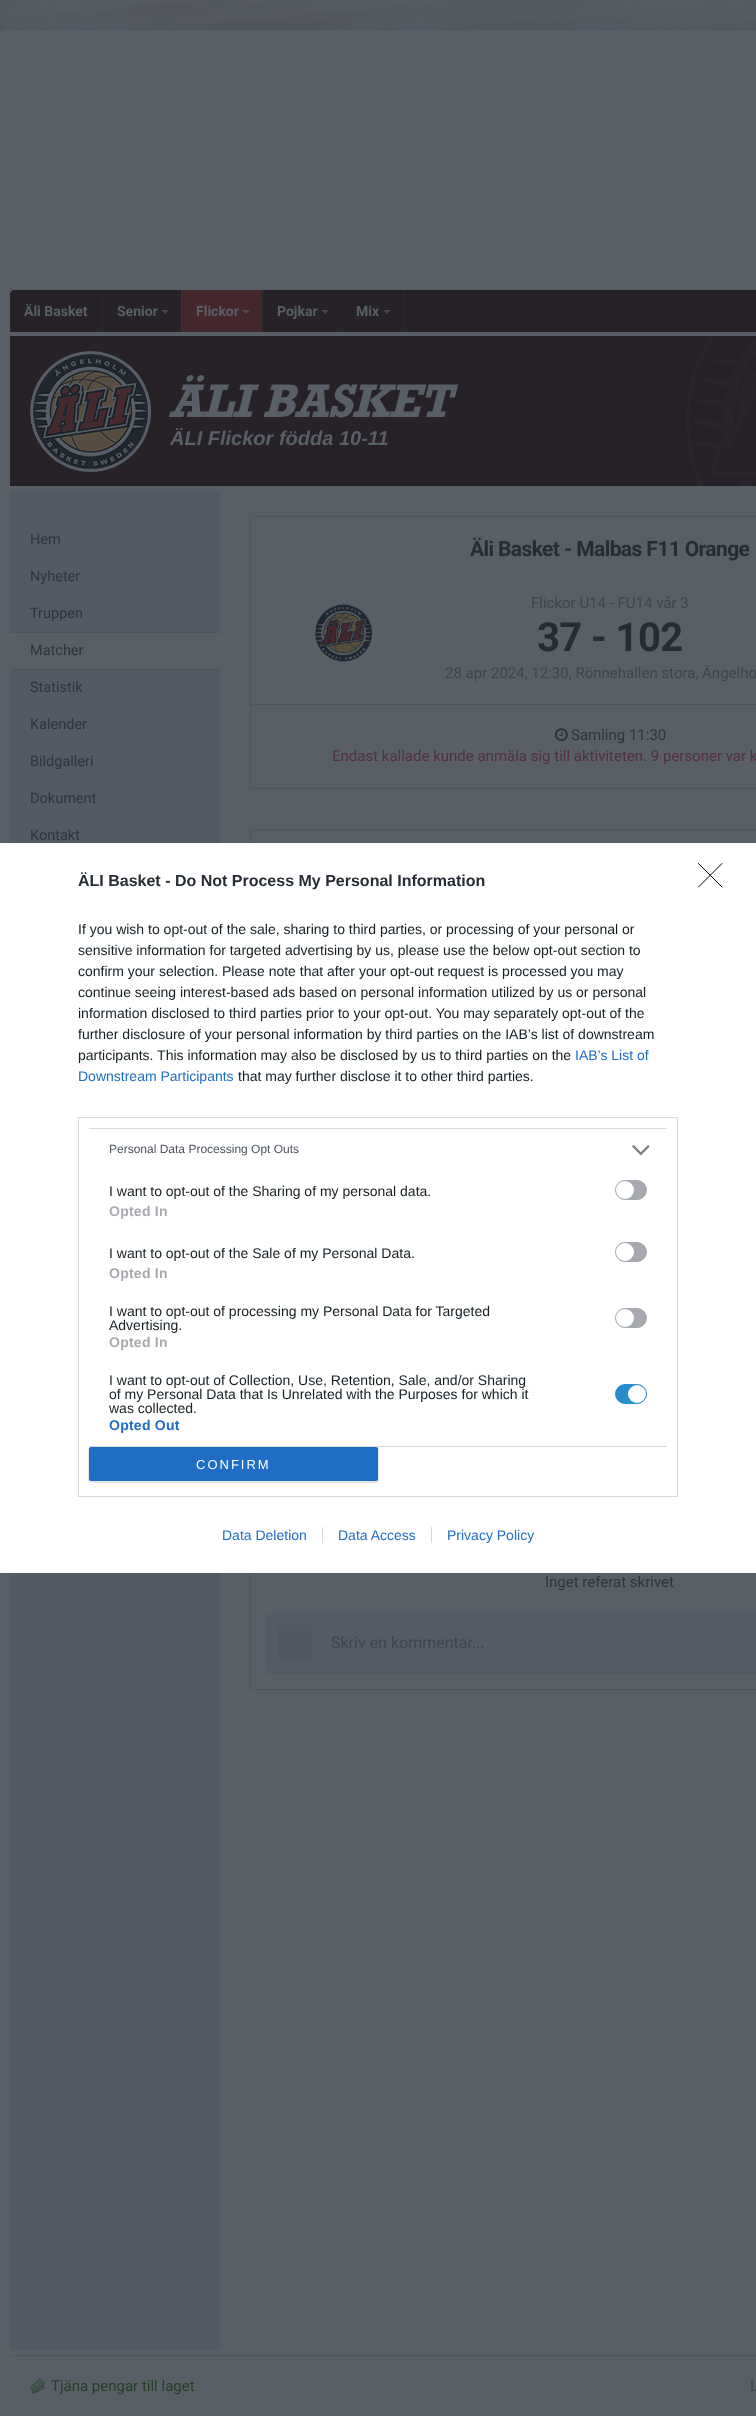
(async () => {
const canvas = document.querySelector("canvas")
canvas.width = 756
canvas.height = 2416
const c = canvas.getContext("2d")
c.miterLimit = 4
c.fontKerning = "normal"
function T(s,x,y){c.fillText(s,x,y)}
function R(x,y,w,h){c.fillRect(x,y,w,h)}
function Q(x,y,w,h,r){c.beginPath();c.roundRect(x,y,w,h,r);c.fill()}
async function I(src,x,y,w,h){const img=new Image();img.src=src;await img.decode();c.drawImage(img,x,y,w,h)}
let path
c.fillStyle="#fff"
R(0,0,756,2416)
await I("1.png",0,0,756,35)
c.fillStyle="#191f2714"
c.filter="blur(12.5px)"
c.beginPath()
c.roundRect(-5,25,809,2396,10)
c.fill()
c.filter="none"
c.fillStyle="#595f67"
path = new Path2D("M5 30h751c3 0 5 2 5 5v2381h-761v-2381c0-3 2-5 5-5z")
c.fill(path)
c.fillStyle="#272228"
path = new Path2D("M14 290h742c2 0 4 2 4 4v38h-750v-38c0-2 2-4 4-4z")
c.fill(path)
c.fillStyle="#2c282f"
R(403,290,1,42)
c.fillStyle="#242128"
R(101,290,1,42)
c.font="bold 14px Roboto"
c.fillStyle="#595f67"
T("Äli Basket",24,316)
c.fillStyle="#242128"
R(180,290,1,42)
c.fillStyle="#2c282f"
R(102,290,1,42)
c.fillStyle="#595f67"
T("Senior",117,316)
c.fillStyle="#45464e"
path = new Path2D("M161 310h8l-4 4z")
c.fill(path)
c.fillStyle="#44272c"
R(182,290,79,42)
c.fillStyle="#3c252b"
R(261,290,1,42)
c.fillStyle="#462c32"
R(181,290,1,42)
c.fillStyle="#595f67"
T("Flickor",196,316)
c.fillStyle="#51484f"
path = new Path2D("M242 310h8l-4 4z")
c.fill(path)
c.fillStyle="#242128"
R(340,290,1,42)
c.fillStyle="#2c282f"
R(262,290,1,42)
c.fillStyle="#595f67"
T("Pojkar",277,316)
c.fillStyle="#45464e"
path = new Path2D("M321 310h8l-4 4z")
c.fill(path)
c.fillStyle="#242128"
R(402,290,1,42)
c.fillStyle="#2c282f"
R(341,290,1,42)
c.fillStyle="#595f67"
T("Mix",356,316)
c.fillStyle="#45464e"
path = new Path2D("M383 310h8l-4 4z")
c.fill(path)
c.fillStyle="#272228"
R(10,336,18,150)
await I("2.png",28,336,728,150)
c.letterSpacing="-1px"
c.font="italic bold 48px Rockwell"
c.fillStyle="#595f67"
T("ÄLI BASKET",169,417)
c.letterSpacing="0px"
c.font="italic bold 20px Liberation Sans"
T("ÄLI Flickor födda 10-11",170,445)
c.fillStyle="#545a63"
R(10,491,210,1859)
c.fillStyle="#50565e"
R(10,521,210,1)
R(10,558,210,1)
c.font="14.5px Roboto"
c.fillStyle="#2e343c"
T("Hem",30,544)
c.fillStyle="#50565e"
R(10,595,210,1)
c.fillStyle="#2e343c"
T("Nyheter",30,581)
c.fillStyle="#50565e"
R(10,632,210,1)
c.fillStyle="#2e343c"
T("Truppen",30,618)
c.fillStyle="#595f67"
R(10,633,210,36)
c.fillStyle="#50565e"
R(10,669,210,1)
c.fillStyle="#2e343c"
T("Matcher",30,655)
c.fillStyle="#50565e"
R(10,706,210,1)
c.fillStyle="#2e343c"
T("Statistik",30,692)
c.fillStyle="#50565e"
R(10,743,210,1)
c.fillStyle="#2e343c"
T("Kalender",30,729)
c.fillStyle="#50565e"
R(10,780,210,1)
c.fillStyle="#2e343c"
T("Bildgalleri",30,766)
c.fillStyle="#50565e"
R(10,817,210,1)
c.fillStyle="#2e343c"
T("Dokument",30,803)
T("Kontakt",30,840)
c.beginPath()
c.roundRect(250.5,516.5,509,272,2.5)
c.strokeStyle="#50565e"
c.stroke()
c.letterSpacing="-0.6px"
c.font="bold 21px Roboto"
c.fillStyle="#262c34"
T("Äli Basket - Malbas F11 Orange",470,556)
c.fillStyle="#545a63"
R(271,577,485,1)
await I("3.png",315,603,58,60)
c.letterSpacing="0px"
c.font="15px Roboto"
c.fillStyle="#3f454d"
T("Flickor U14 - FU14 vår 3",531,608)
c.letterSpacing="-0.6px"
c.font="bold 40px Roboto"
c.fillStyle="#262c34"
T("37 - 102",537,651)
c.letterSpacing="0px"
c.font="15px Roboto"
c.fillStyle="#3f454d"
T("28 apr 2024, 12:30, Rönnehallen stora, Ängelho",445,678)
c.fillStyle="#50565e"
R(251,704,505,1)
await I("4.png",555,728,13,14)
c.fillStyle="#2e343c"
T("Samling 11:30",571,740)
c.fillStyle="#54303e"
T("Endast kallade kunde anmäla sig till aktiviteten. 9 personer var k",332,761)
c.fillStyle="#50565e"
path = new Path2D("M255 829h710c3 0 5 2 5 5v514h-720v-514c0-3 2-5 5-5zm0 1h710c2 0 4 2 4 4v514h-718v-514c0-2 2-4 4-4z")
c.fill(path,"evenodd")
path = new Path2D("M255 1477h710c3 0 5 2 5 5v208h-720v-208c0-3 2-5 5-5zm0 1h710c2 0 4 2 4 4v208h-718v-208c0-2 2-4 4-4z")
c.fill(path,"evenodd")
R(251,1689,505,1)
c.fillStyle="#2e343c"
T("Inget referat skrivet",545,1587)
c.fillStyle="#555b64"
Q(266,1613,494,61,4)
c.fillStyle="#525861"
Q(278,1625,34,34,3)
c.font="16px Roboto"
c.fillStyle="#3f454d"
T("Skriv en kommentar...",331,1648)
c.fillStyle="#50565e"
R(10,2355,746,1)
await I("5.png",30,2378,16,16)
c.font="15px Roboto"
c.fillStyle="#244127"
T("Tjäna pengar till laget",51,2391)
c.fillStyle="#3f454d"
T("L",750,2391)
c.fillStyle="#fff"
R(0,843,756,730)
c.font="bold 16px Liberation Sans"
c.fillStyle="#262c34"
T("ÄLI Basket - Do Not Process My Personal Information",78,886)
c.font="14px Liberation Sans"
c.fillStyle="#141e23"
T("If you wish to opt-out of the sale, sharing to third parties, or processing of your personal or",78,934)
T("sensitive information for targeted advertising by us, please use the below opt-out section to",78,955)
T("confirm your selection. Please note that after your opt-out request is processed you may",78,976)
T("continue seeing interest-based ads based on personal information utilized by us or personal",78,997)
T("information disclosed to third parties prior to your opt-out. You may separately opt-out of the",78,1018)
T("further disclosure of your personal information by third parties on the IAB’s list of downstream",78,1039)
T("participants. This information may also be disclosed by us to third parties on the",78,1060)
c.fillStyle="#206dc5"
T("IAB’s List of",575,1060)
T("Downstream Participants",78,1081)
c.fillStyle="#141e23"
T("that may further disclose it to other third parties.",238,1081)
c.strokeStyle="#d8d8d8"
c.strokeRect(78.5,1117.5,599,379)
c.fillStyle="#ddd"
R(89,1128,578,1)
c.fillStyle="#d8d8d8"
R(89,1446,578,1)
c.font="12px Liberation Sans"
c.fillStyle="#4d545d"
T("Personal Data Processing Opt Outs",109,1153)
await I("6.png",632,1145,18,11)
c.font="14px Liberation Sans"
c.fillStyle="#141e23"
T("I want to opt-out of the Sharing of my personal data.",109,1196)
c.fillStyle="#a6a9ae"
c.beginPath()
c.roundRect(615.5,1180.5,31,19,9.5)
c.fill()
c.strokeStyle="#a6a9ae"
c.stroke()
c.fillStyle="#fff"
c.beginPath()
c.arc(625,1190,9,0,7)
c.fill()
c.letterSpacing="0.25px"
c.font="bold 14px Liberation Sans"
c.fillStyle="#a6a9ae"
T("Opted In",109,1216)
c.letterSpacing="0px"
c.font="14px Liberation Sans"
c.fillStyle="#141e23"
T("I want to opt-out of the Sale of my Personal Data.",109,1258)
c.fillStyle="#a6a9ae"
c.beginPath()
c.roundRect(615.5,1242.5,31,19,9.5)
c.fill()
c.stroke()
c.fillStyle="#fff"
c.beginPath()
c.arc(625,1252,9,0,7)
c.fill()
c.letterSpacing="0.25px"
c.font="bold 14px Liberation Sans"
c.fillStyle="#a6a9ae"
T("Opted In",109,1278)
c.letterSpacing="0px"
c.font="14px Liberation Sans"
c.fillStyle="#141e23"
T("I want to opt-out of processing my Personal Data for Targeted",109,1316)
T("Advertising.",109,1330)
c.fillStyle="#a6a9ae"
c.beginPath()
c.roundRect(615.5,1308.5,31,19,9.5)
c.fill()
c.stroke()
c.fillStyle="#fff"
c.beginPath()
c.arc(625,1318,9,0,7)
c.fill()
c.letterSpacing="0.25px"
c.font="bold 14px Liberation Sans"
c.fillStyle="#a6a9ae"
T("Opted In",109,1347)
c.letterSpacing="0px"
c.font="14px Liberation Sans"
c.fillStyle="#141e23"
T("I want to opt-out of Collection, Use, Retention, Sale, and/or Sharing",109,1385)
T("of my Personal Data that Is Unrelated with the Purposes for which it",109,1399)
T("was collected.",109,1413)
c.fillStyle="#298ccd"
c.beginPath()
c.roundRect(615.5,1384.5,31,19,9.5)
c.fill()
c.strokeStyle="#298ccd"
c.stroke()
c.fillStyle="#fff"
c.beginPath()
c.arc(637,1394,9,0,7)
c.fill()
c.letterSpacing="0.25px"
c.font="bold 14px Liberation Sans"
c.fillStyle="#206dc5"
T("Opted Out",109,1430)
c.fillStyle="#0000001a"
c.filter="blur(0.5px)"
c.beginPath()
c.roundRect(88,1447,291,36,3)
c.fill()
c.filter="none"
c.fillStyle="#206dc5"
Q(89,1447,289,34,2)
c.letterSpacing="2px"
c.font="13px Liberation Sans"
c.fillStyle="#fff"
T("CONFIRM",196,1469)
path = new Path2D("M698.5 863.5l23.5 23.5m0-23.5l-23.5 23.5")
c.strokeStyle="#000"
c.lineCap="round"
c.lineJoin="round"
c.stroke(path)
c.letterSpacing="0px"
c.font="14px Liberation Sans"
c.fillStyle="#206dc5"
T("Data Deletion",222,1540)
T("Data Access",338,1540)
c.fillStyle="#d8d8d8"
R(322,1527,1,16)
c.fillStyle="#206dc5"
T("Privacy Policy",447,1540)
c.fillStyle="#d8d8d8"
R(431,1527,1,16)
})()
